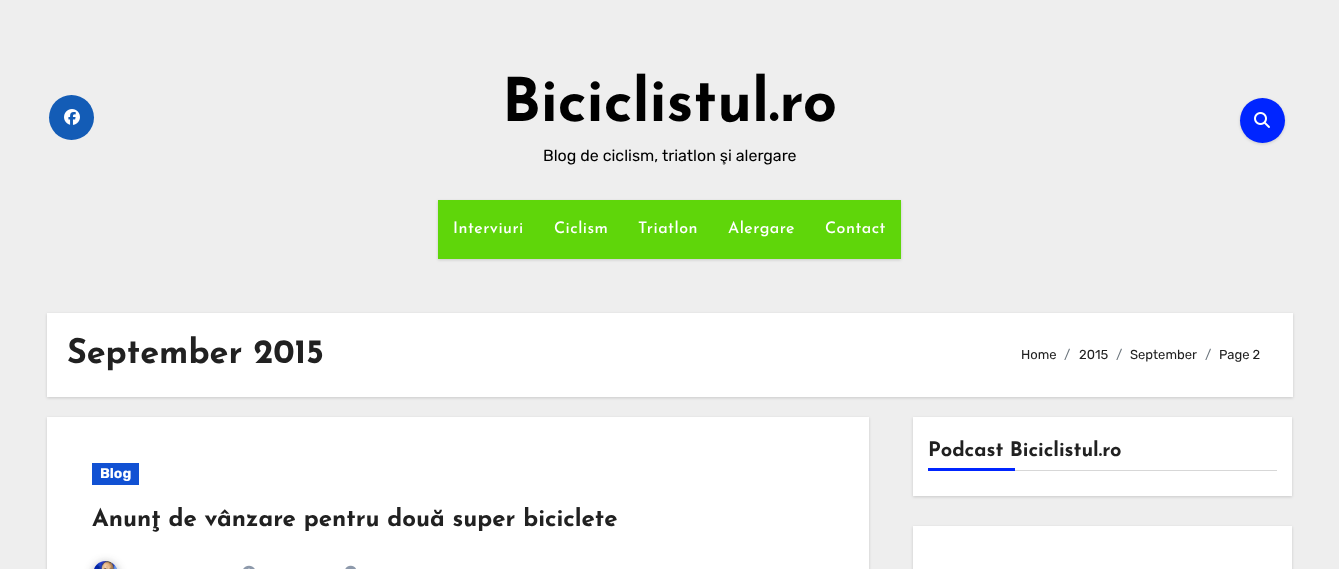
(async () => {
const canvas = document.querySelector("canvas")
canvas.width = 1339
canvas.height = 569
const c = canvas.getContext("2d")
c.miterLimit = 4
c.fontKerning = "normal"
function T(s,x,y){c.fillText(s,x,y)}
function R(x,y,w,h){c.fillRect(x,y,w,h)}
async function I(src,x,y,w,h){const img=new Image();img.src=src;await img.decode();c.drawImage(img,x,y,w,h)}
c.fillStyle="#eee"
R(0,0,1339,569)
c.fillStyle="#135cb6"
c.beginPath()
c.arc(71.5,117.5,22.5,0,7)
c.fill()
await I("1.png",64,109,16,16)
c.font="bold 60px Josefin Sans"
c.fillStyle="#000"
T("Biciclistul.ro",502,121)
c.font="300 16px Rubik"
T("Blog de ciclism, triatlon şi alergare",543,161)
c.fillStyle="#00000026"
c.filter="blur(1.5px)"
c.beginPath()
c.roundRect(1240,99,45,45,22.5)
c.fill()
c.filter="none"
c.fillStyle="#0025ff"
c.beginPath()
c.arc(1262.5,120.5,22.5,0,7)
c.fill()
await I("2.png",1254,112,16,16)
c.fillStyle="#00000026"
c.filter="blur(1.5px)"
c.beginPath()
c.rect(438,201,463,59)
c.fill()
c.filter="none"
c.fillStyle="#5fd60a"
R(438,200,463,59)
c.letterSpacing="0.5px"
c.font="500 16px Josefin Sans"
c.fillStyle="#fff"
T("Interviuri",453,233)
T("Ciclism",554,233)
T("Triatlon",638,233)
T("Alergare",728,233)
T("Contact",825,233)
c.fillStyle="#00000026"
c.filter="blur(1.5px)"
c.beginPath()
c.rect(47,314,1246,84)
c.fill()
c.filter="none"
c.fillStyle="#fff"
R(47,313,1246,84)
c.letterSpacing="0px"
c.font="bold 34px Josefin Sans"
c.fillStyle="#212121"
T("September 2015",67,363)
c.font="300 13px Rubik"
T("Home",1021,359)
c.fillStyle="#6c757d"
T("/",1064,359)
c.fillStyle="#212121"
T("2015",1079,359)
c.fillStyle="#6c757d"
T("/",1116,359)
c.fillStyle="#212121"
T("September",1130,359)
c.fillStyle="#6c757d"
T("/",1205,359)
c.fillStyle="#212121"
T("Page 2",1219,359)
c.fillStyle="#00000026"
c.filter="blur(1.5px)"
c.beginPath()
c.rect(913,418,379,79)
c.fill()
c.filter="none"
c.fillStyle="#fff"
R(913,417,379,79)
c.fillStyle="#d7d7d7"
R(1015,470,262,1)
c.font="bold 20px Josefin Sans"
c.fillStyle="#212121"
T("Podcast Biciclistul.ro",928,456)
c.fillStyle="#0025ff"
R(928,468,87,3)
c.fillStyle="#00000026"
c.filter="blur(1.5px)"
c.beginPath()
c.rect(913,527,379,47)
c.fill()
c.filter="none"
c.fillStyle="#fff"
R(913,526,379,43)
c.fillStyle="#00000026"
c.filter="blur(1.5px)"
c.beginPath()
c.rect(47,418,822,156)
c.fill()
c.filter="none"
c.fillStyle="#fff"
R(47,417,822,152)
c.fillStyle="#1151d3"
R(92,463,47,22)
c.font="bold 14px Rubik"
c.fillStyle="#fff"
T("Blog",100,478)
c.font="bold 24px Josefin Sans"
c.fillStyle="#212121"
T("Anunţ de vânzare pentru două super biciclete",92,526)
c.fillStyle="#2121214d"
c.filter="blur(4px)"
c.beginPath()
c.roundRect(92,562,27,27,13.5)
c.fill()
c.filter="none"
await I("3.png",94,561,23,8)
await I("4.png",243,565,12,4)
await I("5.png",345,565,11,4)
})()
